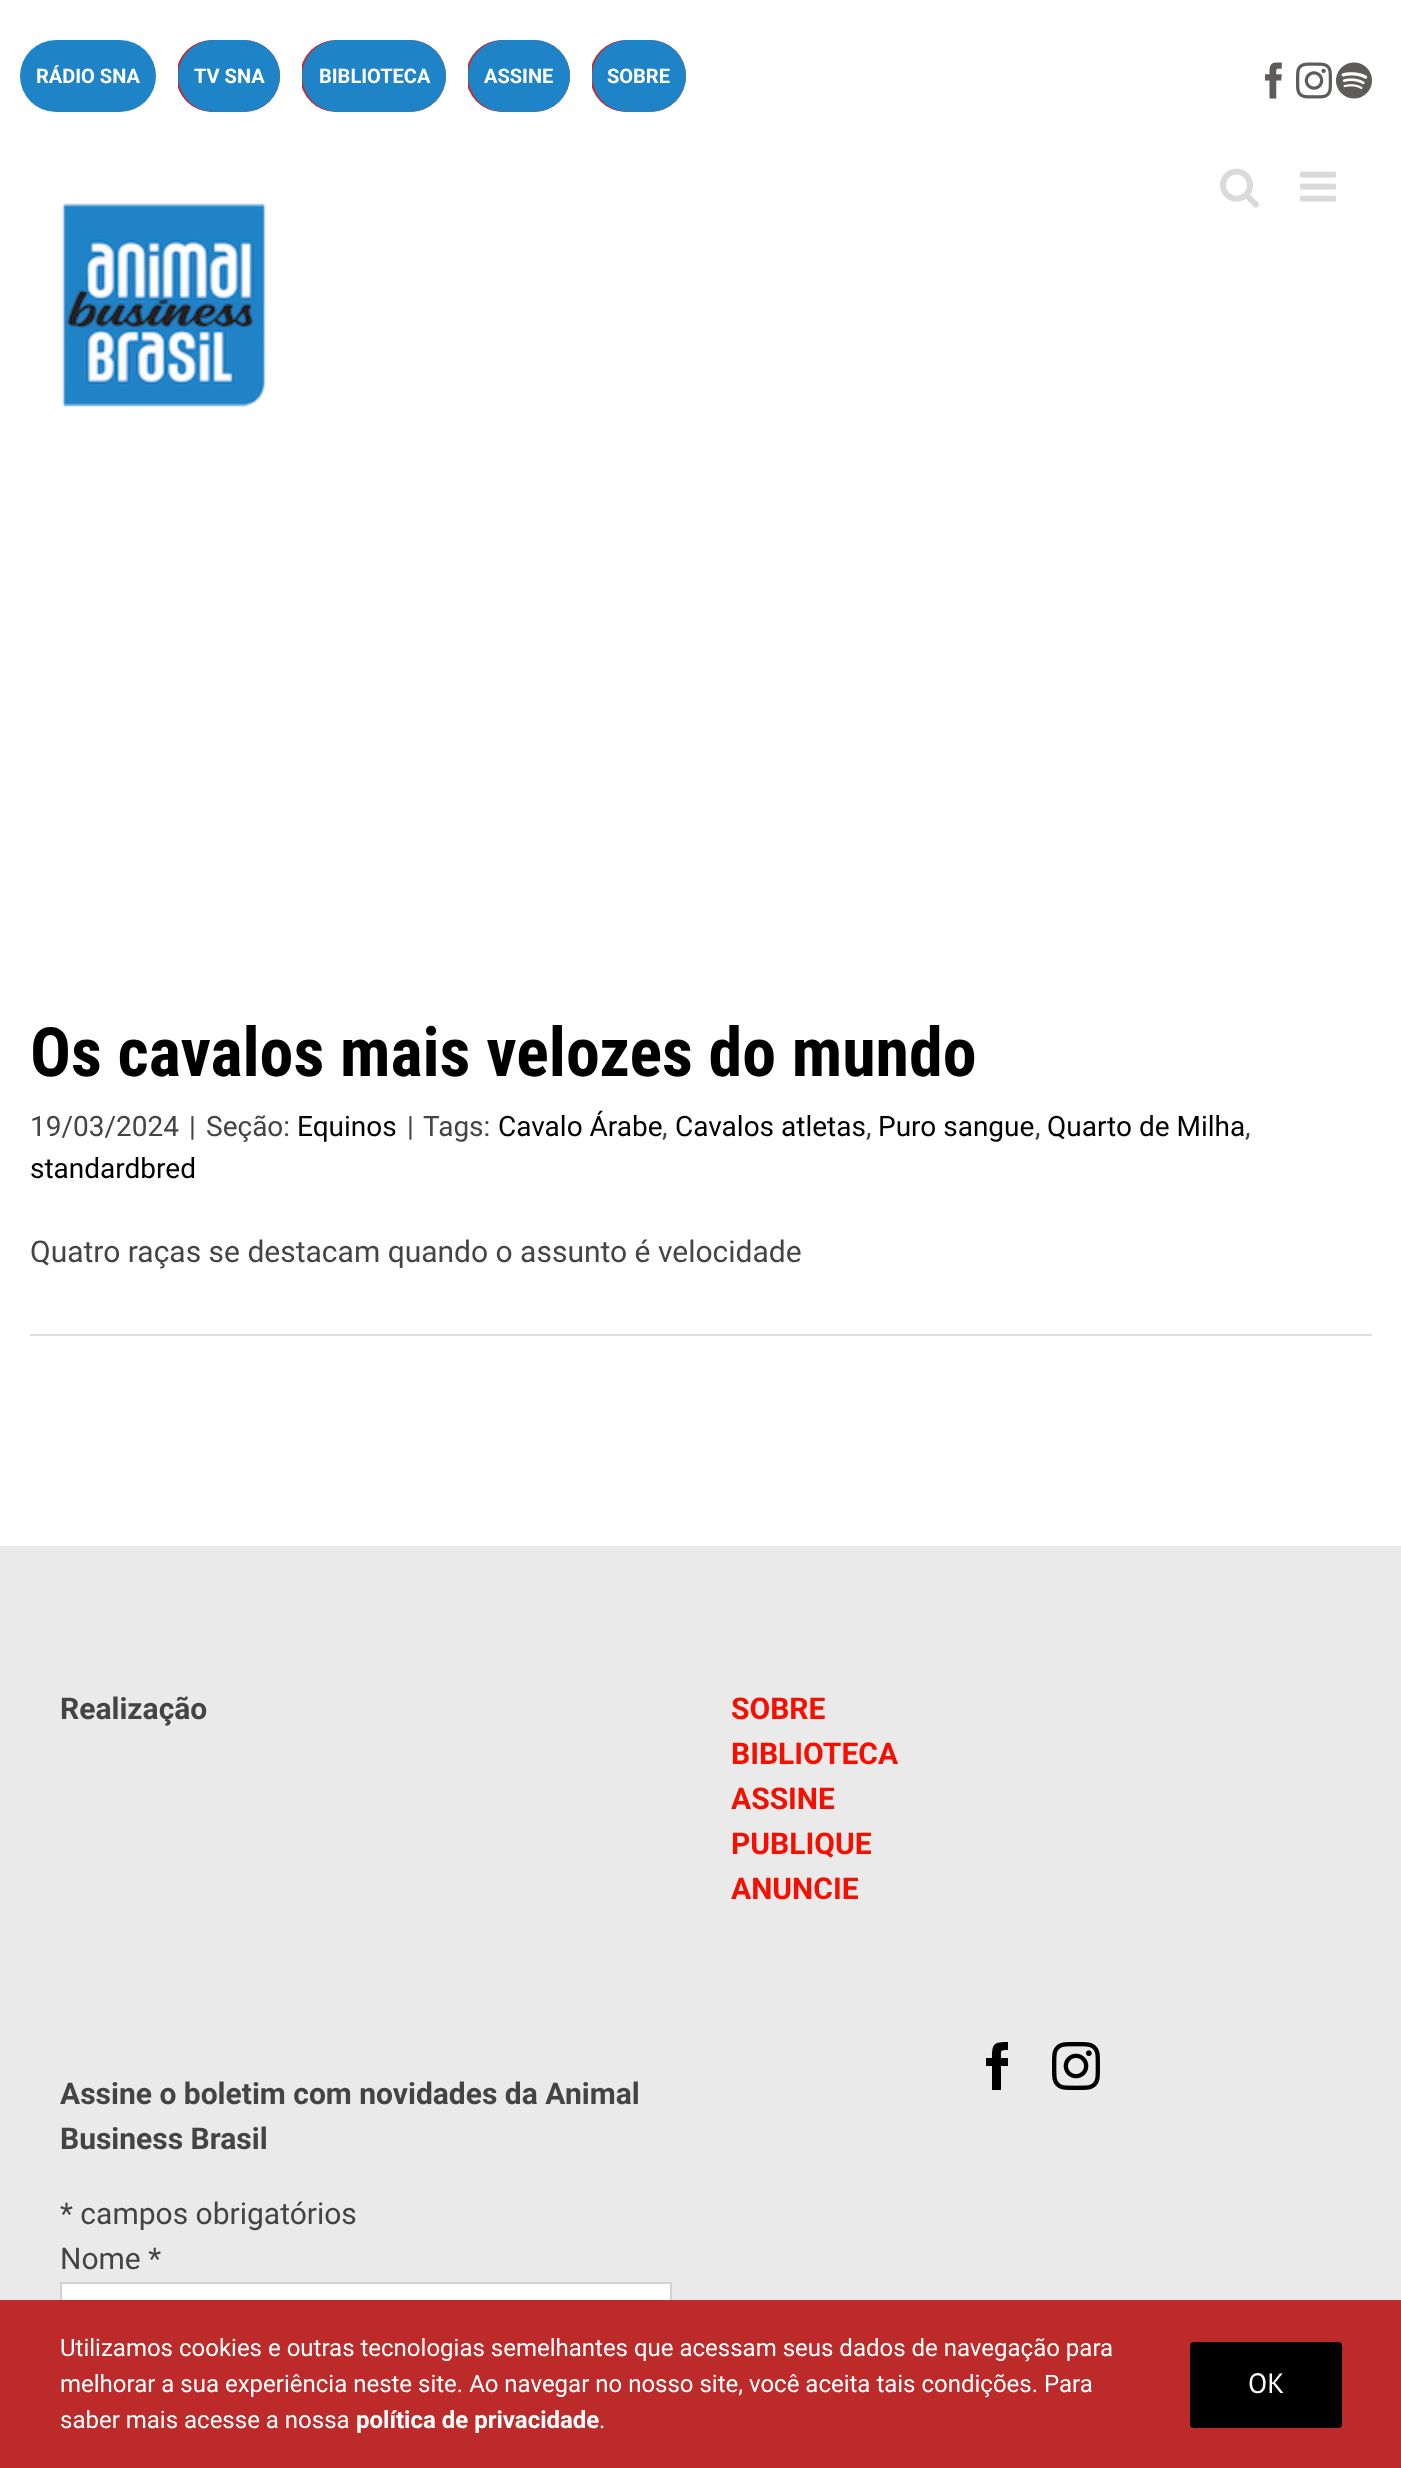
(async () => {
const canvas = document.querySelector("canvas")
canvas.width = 1401
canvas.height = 2468
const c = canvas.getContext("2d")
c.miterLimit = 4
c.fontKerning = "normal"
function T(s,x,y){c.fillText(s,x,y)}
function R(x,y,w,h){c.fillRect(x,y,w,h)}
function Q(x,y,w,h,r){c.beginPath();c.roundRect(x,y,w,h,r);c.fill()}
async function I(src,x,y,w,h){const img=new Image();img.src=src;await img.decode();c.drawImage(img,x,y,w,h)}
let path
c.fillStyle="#fff"
R(0,0,1401,2468)
c.fillStyle="#1f83c7"
Q(20,40,136,72,36)
c.font="bold 20px Roboto"
c.fillStyle="#fff"
T("RÁDIO SNA",36,83)
c.fillStyle="#c9252c"
Q(176,40,104,72,36)
c.fillStyle="#fff"
R(176,58,2,36)
c.fillStyle="#1f83c7"
Q(178,40,102,72,36)
c.fillStyle="#fff"
T("TV SNA",194,83)
c.fillStyle="#c9252c"
Q(300,40,146,72,36)
c.fillStyle="#fff"
R(300,58,2,36)
c.fillStyle="#1f83c7"
Q(302,40,144,72,36)
c.fillStyle="#fff"
T("BIBLIOTECA",319,83)
c.fillStyle="#c9252c"
Q(466,40,104,72,36)
c.fillStyle="#fff"
R(466,58,2,36)
c.fillStyle="#1f83c7"
Q(468,40,102,72,36)
c.fillStyle="#fff"
T("ASSINE",484,83)
c.fillStyle="#c9252c"
Q(590,40,96,72,36)
c.fillStyle="#fff"
R(590,58,2,36)
c.fillStyle="#1f83c7"
Q(592,40,94,72,36)
c.fillStyle="#fff"
T("SOBRE",607,83)
await I("1.png",1265,62,17,37)
await I("2.png",1296,62,36,37)
await I("3.png",1336,62,36,37)
await I("4.png",1220,168,39,40)
await I("5.png",1300,171,36,31)
await I("6.png",61,203,206,204)
c.font="bold 68px Roboto Condensed"
c.fillStyle="#000"
T("Os cavalos mais velozes do mundo",30,1076)
c.font="28px Roboto"
c.fillStyle="#444"
T("19/03/2024",30,1136)
T("|",189,1136)
T("Seção:",206,1136)
c.fillStyle="#000"
T("Equinos",297,1136)
c.fillStyle="#444"
T("|",407,1136)
T("Tags:",423,1136)
c.fillStyle="#000"
T("Cavalo Árabe",498,1136)
c.fillStyle="#444"
T(",",662,1136)
c.fillStyle="#000"
T("Cavalos atletas",675,1136)
c.fillStyle="#444"
T(",",866,1136)
c.fillStyle="#000"
T("Puro sangue",878,1136)
c.fillStyle="#444"
T(",",1035,1136)
c.fillStyle="#000"
T("Quarto de Milha",1047,1136)
c.fillStyle="#444"
T(",",1245,1136)
c.fillStyle="#000"
T("standardbred",30,1178)
c.font="30px Roboto"
c.fillStyle="#444"
T("Quatro raças se destacam quando o assunto é velocidade",30,1262)
c.fillStyle="#e0dede"
R(30,1334,1342,2)
c.fillStyle="#eaeaea"
R(0,1546,1401,754)
c.font="bold 30px Roboto"
c.fillStyle="#444"
T("Realização",60,1719)
c.fillStyle="#f41000"
T("SOBRE",731,1719)
T("BIBLIOTECA",731,1764)
T("ASSINE",731,1809)
T("PUBLIQUE",731,1854)
T("ANUNCIE",731,1899)
c.fillStyle="#000"
path = new Path2D("M1001 2090h-9v-24h-6v-8h6c0-15 2-16 16-16v8c-8 0-7 0-7 8h7v8h-7z")
c.fill(path)
await I("7.png",1052,2042,48,48)
c.fillStyle="#444"
T("Assine o boletim com novidades da Animal",60,2104)
T("Business Brasil",60,2149)
c.font="30px Roboto"
T("* campos obrigatórios",60,2224)
T("Nome *",60,2269)
c.fillStyle="#fff"
R(62,2284,608,16)
c.strokeStyle="#d2d2d2"
c.lineWidth=2
c.strokeRect(61,2283,610,56)
c.fillStyle="#bc2b29"
R(0,2300,1401,168)
c.font="24px Roboto"
c.fillStyle="#fff"
T("Utilizamos cookies e outras tecnologias semelhantes que acessam seus dados de navegação para",60,2356)
T("melhorar a sua experiência neste site. Ao navegar no nosso site, você aceita tais condições. Para",60,2392)
T("saber mais acesse a nossa",60,2428)
c.font="bold 24px Roboto"
T("política de privacidade",356,2428)
c.font="24px Roboto"
T(".",599,2428)
c.fillStyle="#000"
Q(1190,2342,152,86,4)
c.font="28px PT Sans"
c.fillStyle="#fff"
T("OK",1248,2393)
})()
